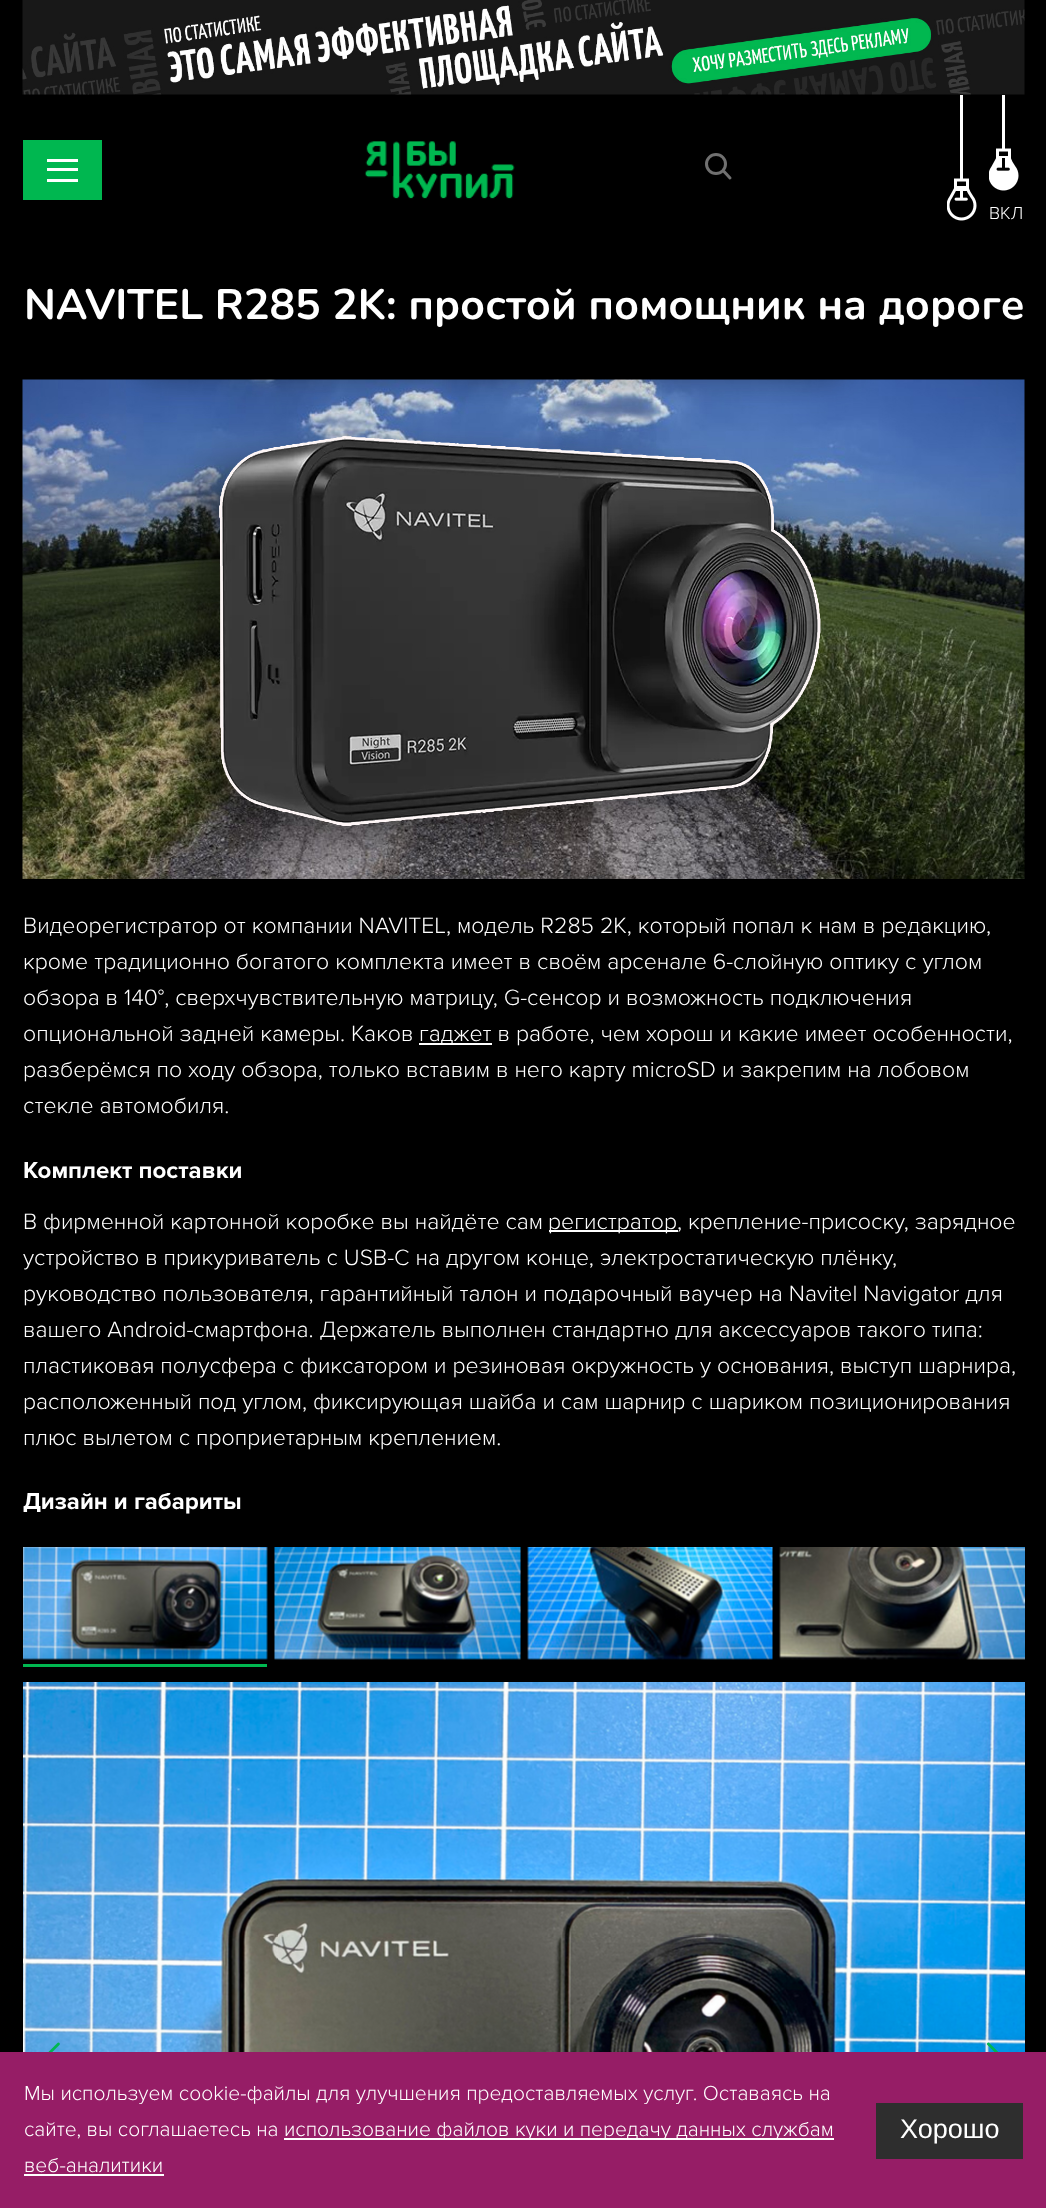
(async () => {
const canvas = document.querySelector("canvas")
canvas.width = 1046
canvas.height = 2208
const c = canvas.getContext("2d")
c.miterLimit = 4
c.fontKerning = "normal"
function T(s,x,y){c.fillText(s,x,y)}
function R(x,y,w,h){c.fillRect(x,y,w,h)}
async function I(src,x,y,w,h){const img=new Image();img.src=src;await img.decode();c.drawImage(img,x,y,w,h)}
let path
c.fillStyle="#000"
R(0,0,1046,2208)
await I("1.png",22,0,1003,95)
c.fillStyle="#00b750"
R(23,140,79,60)
c.fillStyle="#fff"
R(47,159,31,3)
R(47,168,31,3)
R(47,179,31,3)
await I("2.png",364,141,151,58)
c.beginPath()
c.arc(716,164,9.5,0,7)
c.strokeStyle="#707070"
c.lineWidth=3
c.stroke()
path = new Path2D("M724 171.5l6 6.5")
c.lineCap="round"
c.stroke(path)
await I("3.png",947,95,30,126)
await I("4.png",989,95,30,96)
c.font="300 18px Proxima Nova"
T("ВКЛ",989,219)
c.font="bold 42.6px Nunito"
T("NAVITEL R285 2K: простой помощник на дороге",24,319)
await I("5.png",22,379,1003,500)
c.font="300 23.05px Proxima Nova"
T("Видеорегистратор от компании NAVITEL, модель R285 2K, который попал к нам в редакцию,",23,933)
T("кроме традиционно богатого комплекта имеет в своём арсенале 6-слойную оптику с углом",23,969)
T("обзора в 140°, сверхчувствительную матрицу, G-сенсор и возможность подключения",23,1005)
T("опциональной задней камеры. Каков",23,1041)
R(419,1043,73,2)
T("гаджет в работе, чем хорош и какие имеет особенности,",419,1041)
T("разберёмся по ходу обзора, только вставим в него карту microSD и закрепим на лобовом",23,1077)
T("стекле автомобиля.",23,1113)
c.font="bold 24px Proxima Nova"
T("Комплект поставки",23,1178)
c.font="300 23.05px Proxima Nova"
T("В фирменной картонной коробке вы найдёте сам",23,1229)
R(549,1230,129,2)
T("регистратор, крепление-присоску, зарядное",548,1229)
T("устройство в прикуриватель с USB-C на другом конце, электростатическую плёнку,",23,1265)
T("руководство пользователя, гарантийный талон и подарочный ваучер на Navitel Navigator для",23,1301)
T("вашего Android-смартфона. Держатель выполнен стандартно для аксессуаров такого типа:",23,1337)
T("пластиковая полусфера с фиксатором и резиновая окружность у основания, выступ шарнира,",23,1373)
T("расположенный под углом, фиксирующая шайба и сам шарнир с шариком позиционирования",23,1409)
T("плюс вылетом с проприетарным креплением.",23,1445)
c.font="bold 24px Proxima Nova"
T("Дизайн и габариты",23,1509)
await I("6.png",23,1547,245,113)
c.fillStyle="#00b750"
R(23,1664,244,3)
await I("7.png",274,1547,247,113)
await I("8.png",527,1547,246,113)
await I("9.png",779,1547,246,113)
await I("10.png",23,1682,1002,370)
await I("11.png",48,2042,12,10)
await I("12.png",986,2042,13,10)
c.fillStyle="#961d66"
R(0,2052,1046,156)
c.font="300 21px Proxima Nova"
c.fillStyle="#fff"
T("Мы используем cookie-файлы для улучшения предоставляемых услуг. Оставаясь на",24,2100)
T("сайте, вы соглашаетесь на",24,2136)
R(284,2138,550,2)
T("использование файлов куки и передачу данных службам",284,2136)
T("веб-аналитики",24,2172)
R(24,2174,140,2)
c.fillStyle="#2e2e2e"
R(876,2103,147,56)
c.font="27px Liberation Sans"
c.fillStyle="#fff"
T("Хорошо",900,2138)
})()
